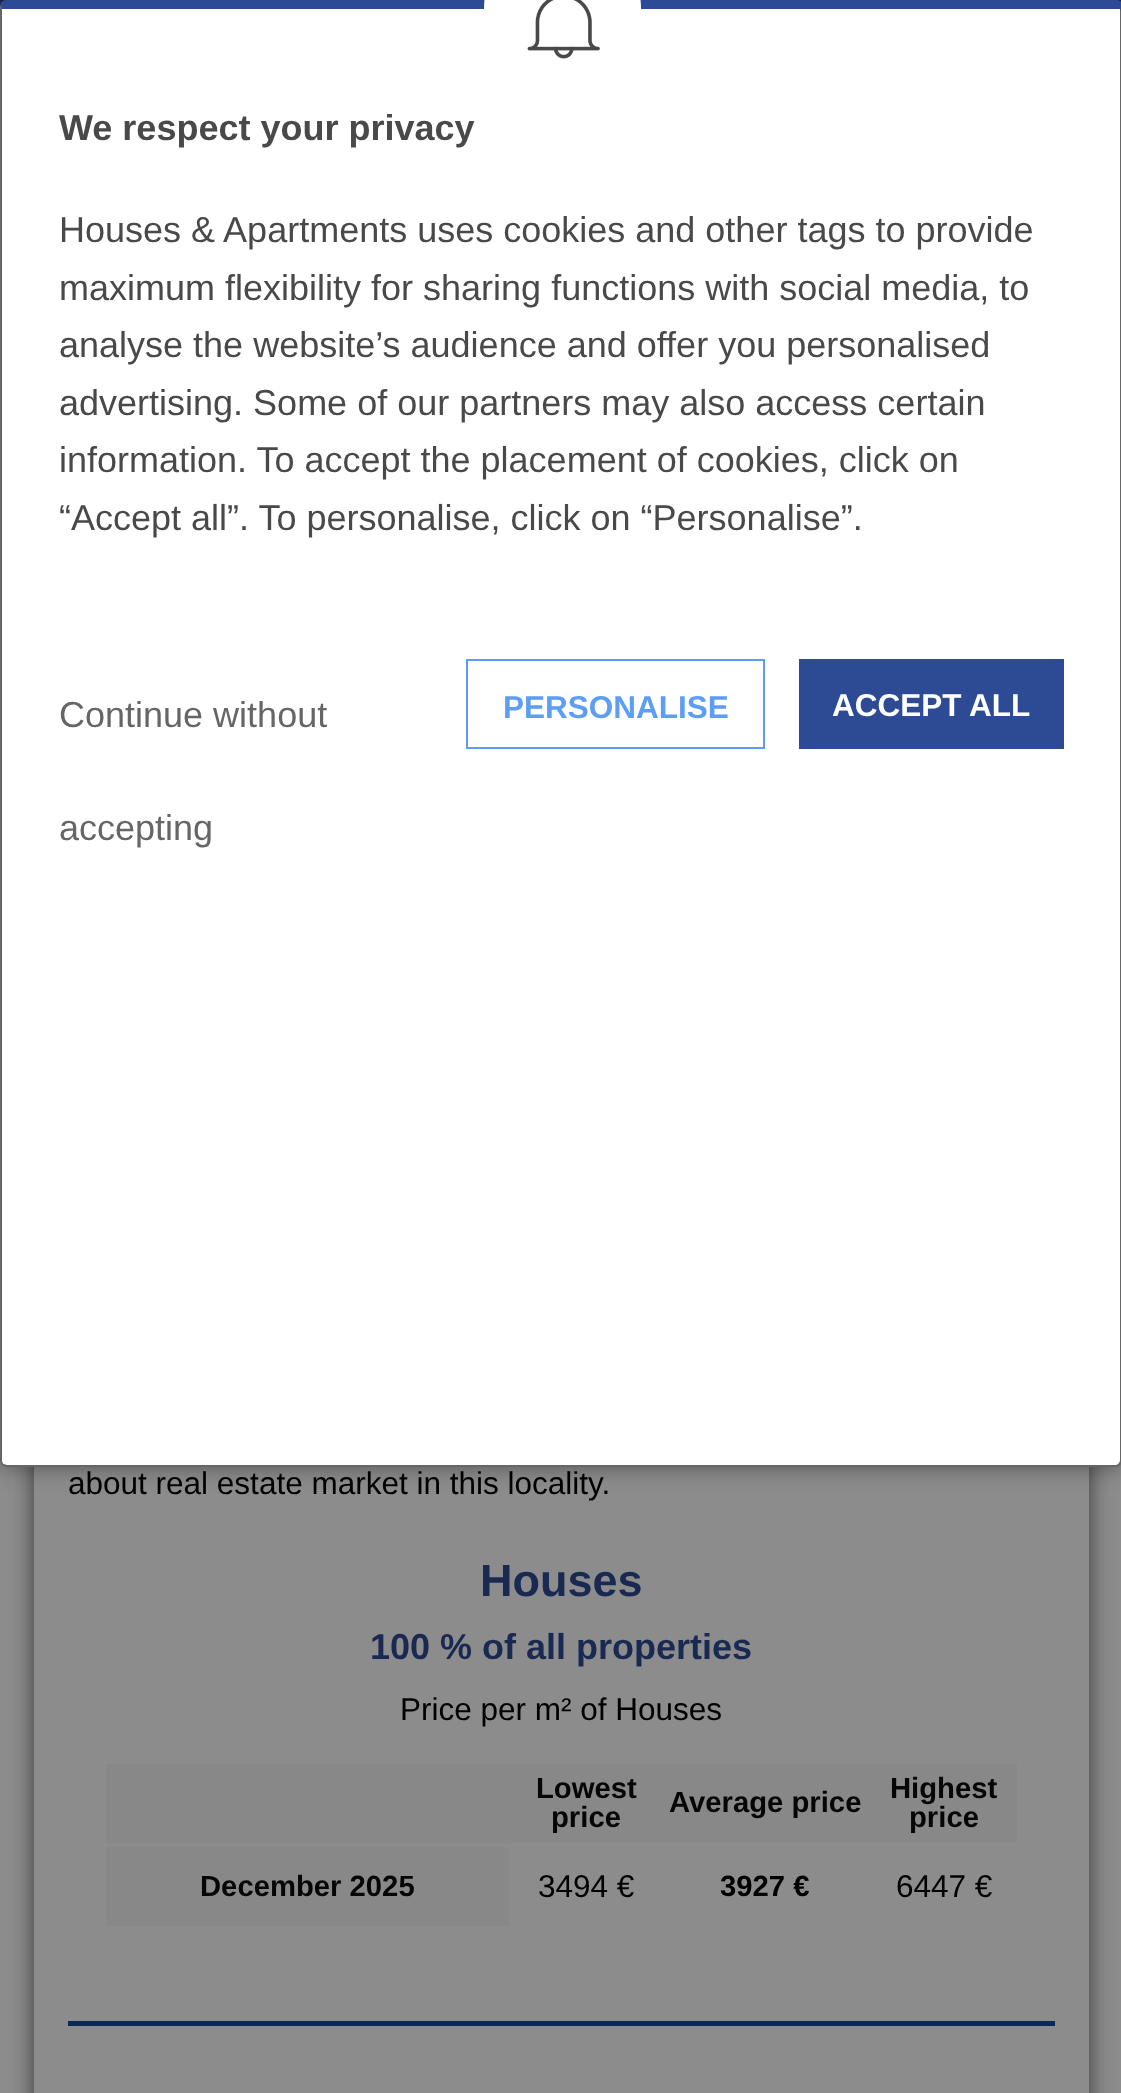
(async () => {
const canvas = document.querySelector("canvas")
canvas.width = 1121
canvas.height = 2093
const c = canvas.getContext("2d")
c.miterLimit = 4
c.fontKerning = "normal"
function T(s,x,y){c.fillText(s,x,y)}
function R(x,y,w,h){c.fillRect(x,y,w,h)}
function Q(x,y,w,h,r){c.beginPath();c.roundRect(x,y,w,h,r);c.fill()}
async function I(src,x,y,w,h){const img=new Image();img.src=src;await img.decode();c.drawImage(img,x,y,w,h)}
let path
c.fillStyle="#8c8c8c"
R(0,0,1121,2093)
c.fillStyle="#192952"
R(0,0,1121,11)
c.fillStyle="#383838"
c.filter="blur(11px)"
c.beginPath()
c.rect(34,1139,1055,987)
c.fill()
c.filter="none"
c.fillStyle="#8c8c8c"
R(34,1467,1055,626)
c.save()
path = new Path2D("M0 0h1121v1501h-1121zm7 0h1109c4 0 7 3 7 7v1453c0 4-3 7-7 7h-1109c-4 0-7-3-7-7v-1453c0-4 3-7 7-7z")
c.clip(path,"evenodd")
c.fillStyle="#00000066"
c.filter="blur(11px)"
c.beginPath()
c.roundRect(0,0,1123,1467,7)
c.fill()
c.filter="none"
c.restore()
c.fillStyle="#fff"
path = new Path2D("M7 9h1113v1451c0 3-2 5-4 5h-1109c-3 0-5-2-5-5v-1451z")
c.fill(path)
c.fillStyle="#2d4a95"
path = new Path2D("M7 0c-3 0-5 1-6 3l1 6h1118v2l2-8c-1-2-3-3-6-3z")
c.fill(path)
c.fillStyle="#666"
path = new Path2D("M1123 1462l-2 3l-2-2c1-1 1-2 1-3v-1449l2-8l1 2z")
c.fill(path)
path = new Path2D("M7 1467h1109c2 0 4-1 5-2l-2-2c-1 1-2 2-3 2h-1109c-1 0-3-1-4-1l-1 1c1 1 3 2 5 2z")
c.fill(path)
path = new Path2D("M0 7v1453c0 2 1 4 2 5l1-1c-1-1-1-2-1-4v-1451l-1-6z")
c.fill(path)
c.fillStyle="#fff"
Q(484,-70,157,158,78.5)
await I("1.png",527,0,73,59)
c.font="bold 36px Liberation Sans"
c.fillStyle="#494949"
T("We respect your privacy",59,140)
c.font="36px Liberation Sans"
T("Houses & Apartments uses cookies and other tags to provide",59,242)
T("maximum flexibility for sharing functions with social media, to",59,300)
T("analyse the website’s audience and offer you personalised",59,357)
T("advertising. Some of our partners may also access certain",59,415)
T("information. To accept the placement of cookies, click on",59,472)
T("“Accept all”. To personalise, click on “Personalise”.",59,530)
c.fillStyle="#666"
T("Continue without",59,727)
c.strokeStyle="#5d9df4"
c.lineWidth=2
c.strokeRect(467,660,297,88)
c.font="bold 31.5px Liberation Sans"
c.fillStyle="#5d9df4"
T("PERSONALISE",503,718)
c.fillStyle="#2d4a95"
R(799,659,265,90)
c.fillStyle="#fff"
T("ACCEPT ALL",832,716)
c.font="36px Liberation Sans"
c.fillStyle="#666"
T("accepting",59,840)
c.font="31.5px Liberation Sans"
c.fillStyle="#000"
T("about real estate market in this locality.",68,1494)
c.font="bold 45px Liberation Sans"
c.fillStyle="#192952"
T("Houses",480,1596)
c.font="bold 36px Liberation Sans"
T("100 % of all properties",370,1659)
c.font="31.5px Liberation Sans"
c.fillStyle="#000"
T("Price per m² of Houses",400,1720)
c.fillStyle="#888"
R(106,1764,911,79)
c.font="bold 29.25px Liberation Sans"
c.fillStyle="#060606"
T("Lowest",536,1798)
T("price",551,1827)
T("Average price",669,1812)
T("Highest",890,1798)
T("price",909,1827)
c.fillStyle="#888"
R(106,1847,403,79)
c.fillStyle="#060606"
T("December 2025",200,1896)
c.font="31.5px Liberation Sans"
c.fillStyle="#000"
T("3494 €",538,1897)
c.font="bold 29.25px Liberation Sans"
T("3927 €",720,1896)
c.font="31.5px Liberation Sans"
T("6447 €",896,1897)
c.fillStyle="#0a2953"
R(68,2021,987,5)
})()
